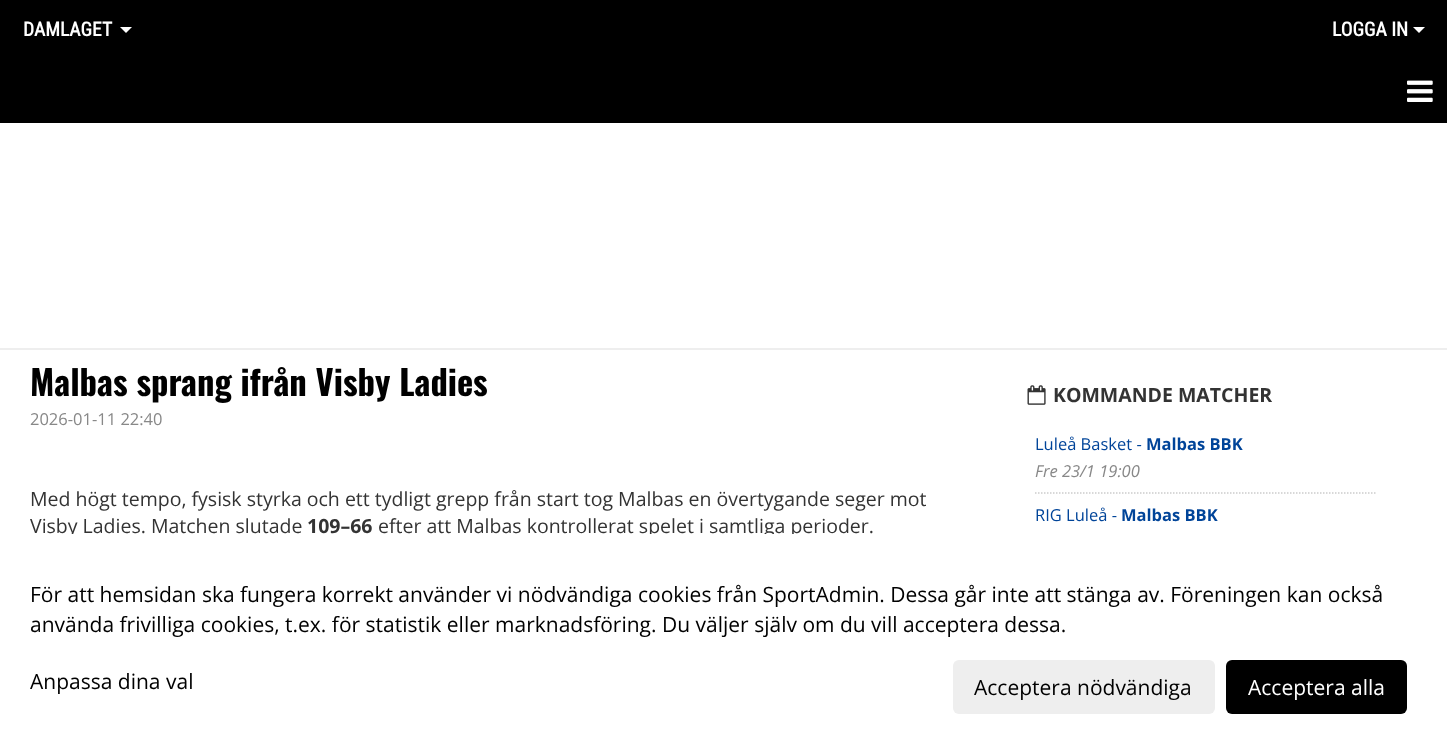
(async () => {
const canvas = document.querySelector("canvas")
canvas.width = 1447
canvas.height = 743
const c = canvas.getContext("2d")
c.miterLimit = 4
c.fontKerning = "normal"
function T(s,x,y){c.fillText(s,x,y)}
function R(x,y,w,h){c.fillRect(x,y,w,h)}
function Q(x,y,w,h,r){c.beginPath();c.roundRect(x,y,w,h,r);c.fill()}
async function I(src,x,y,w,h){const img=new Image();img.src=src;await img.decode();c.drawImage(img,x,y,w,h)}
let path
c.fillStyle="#fff"
R(0,0,1447,743)
c.fillStyle="#000"
R(0,0,1447,123)
c.font="bold 19.5px Roboto Condensed"
c.fillStyle="#fff"
T("DAMLAGET",23,36)
path = new Path2D("M120 27h12l-6 6z")
c.fill(path)
T("LOGGA IN",1332,36)
path = new Path2D("M1413 27h12l-6 6z")
c.fill(path)
await I("1.png",1407,80,26,22)
c.fillStyle="#eee"
R(0,348,1447,2)
c.font="bold 34.5px Oswald"
c.fillStyle="#000"
T("Malbas sprang ifrån Visby Ladies",30,396)
c.font="16.5px Open Sans"
c.fillStyle="#888"
T("2026-01-11 22:40",30,425)
c.font="19.5px Open Sans"
c.fillStyle="#333"
T("Med högt tempo, fysisk styrka och ett tydligt grepp från start tog Malbas en övertygande seger mot",30,506)
T("Visby Ladies. Matchen slutade",30,533)
c.font="bold 19.5px Open Sans"
T("109–66",307,533)
c.font="19.5px Open Sans"
T("efter att Malbas kontrollerat spelet i samtliga perioder.",378,533)
await I("2.png",1027,385,19,20)
c.font="bold 19.5px Open Sans"
T("KOMMANDE MATCHER",1053,402)
c.font="16.5px Open Sans"
c.fillStyle="#049"
T("Luleå Basket -",1035,450)
c.font="bold 16.5px Open Sans"
T("Malbas BBK",1146,450)
path = new Path2D("M1035 493h342")
c.strokeStyle="#ccc"
c.lineWidth=1.5
c.setLineDash([1.5,1.5])
c.stroke(path)
c.font="italic 16.5px Open Sans"
c.fillStyle="#888"
T("Fre 23/1 19:00",1035,477)
c.font="16.5px Open Sans"
c.fillStyle="#049"
T("RIG Luleå -",1035,521)
c.font="bold 16.5px Open Sans"
T("Malbas BBK",1121,521)
c.fillStyle="#fff"
R(67,534,727,4)
c.font="21px Open Sans"
c.fillStyle="#000"
T("För att hemsidan ska fungera korrekt använder vi nödvändiga cookies från SportAdmin. Dessa går inte att stänga av. Föreningen kan också",30,602)
T("använda frivilliga cookies, t.ex. för statistik eller marknadsföring. Du väljer själv om du vill acceptera dessa.",30,632)
T("Anpassa dina val",30,689)
c.fillStyle="#eee"
Q(953,660,262,54,6)
c.fillStyle="#000"
T("Acceptera nödvändiga",974,695)
Q(1226,660,181,54,6)
c.fillStyle="#fff"
T("Acceptera alla",1248,695)
})()
